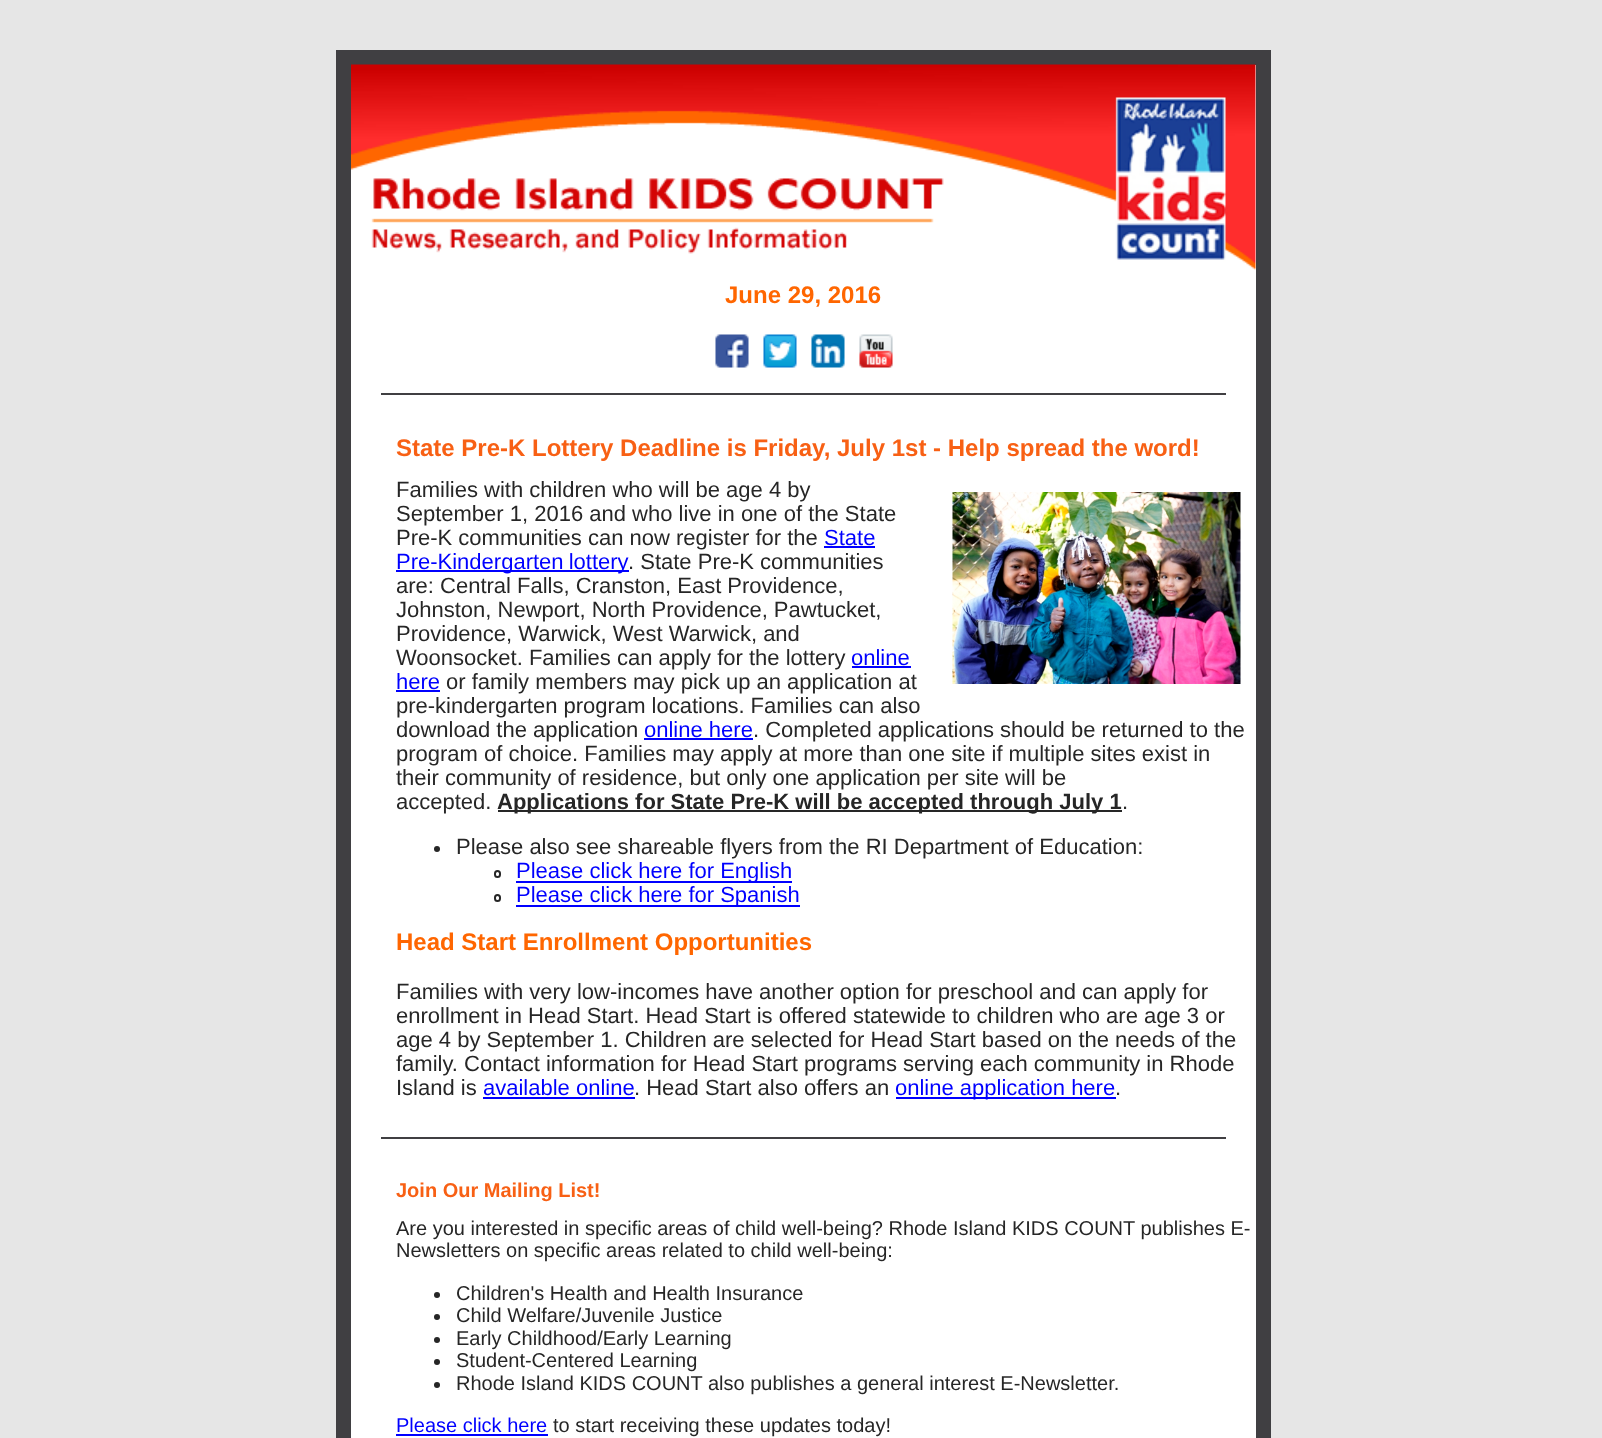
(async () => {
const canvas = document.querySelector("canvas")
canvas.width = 1602
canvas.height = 1438
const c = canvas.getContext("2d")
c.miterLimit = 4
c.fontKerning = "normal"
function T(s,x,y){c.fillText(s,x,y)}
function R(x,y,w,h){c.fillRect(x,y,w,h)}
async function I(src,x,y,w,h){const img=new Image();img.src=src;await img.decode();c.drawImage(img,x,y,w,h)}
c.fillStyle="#e6e6e6"
R(0,0,1602,1438)
c.fillStyle="#403f42"
R(336,50,935,1388)
c.fillStyle="#fff"
R(351,65,905,1373)
await I("1.png",351,64,905,206)
c.font="bold 24px Liberation Sans"
c.fillStyle="#f60"
T("June 29, 2016",725,303)
await I("2.png",715,334,34,34)
await I("3.png",763,334,34,34)
await I("4.png",811,334,34,34)
await I("5.png",859,334,34,34)
c.fillStyle="#403f42"
R(381,393,845,2)
c.fillStyle="#f86014"
T("State Pre-K Lottery Deadline is Friday, July 1st - Help spread the word!",396,456)
c.font="22px Liberation Sans"
c.fillStyle="#262626"
T("Families with children who will be age 4 by",396,497)
await I("6.png",952,492,289,192)
T("September 1, 2016 and who live in one of the State",396,521)
T("Pre-K communities can now register for the",396,545)
c.fillStyle="#00f"
T("State",824,545)
R(824,546,51,2)
R(396,570,233,2)
c.wordSpacing="-1px"
T("Pre-Kindergarten lottery",396,569)
c.wordSpacing="0px"
c.fillStyle="#262626"
T(". State Pre-K communities",628,569)
T("are: Central Falls, Cranston, East Providence,",396,593)
T("Johnston, Newport, North Providence, Pawtucket,",396,617)
T("Providence, Warwick, West Warwick, and",396,641)
T("Woonsocket. Families can apply for the lottery",396,665)
c.fillStyle="#00f"
T("online",851,665)
R(852,666,59,2)
T("here",396,689)
R(396,690,44,2)
c.fillStyle="#262626"
T("or family members may pick up an application at",446,689)
T("pre-kindergarten program locations. Families can also",396,713)
T("download the application",396,737)
c.fillStyle="#00f"
T("online here",644,737)
R(644,738,109,2)
c.fillStyle="#262626"
T(". Completed applications should be returned to the",753,737)
T("program of choice. Families may apply at more than one site if multiple sites exist in",396,761)
T("their community of residence, but only one application per site will be",396,785)
T("accepted.",396,809)
R(498,810,624,2)
c.font="bold 22px Liberation Sans"
T("Applications for State Pre-K will be accepted through July 1",497,809)
c.font="22px Liberation Sans"
T(".",1122,809)
c.beginPath()
c.arc(437,849,3,0,7)
c.fill()
T("Please also see shareable flyers from the RI Department of Education:",456,854)
c.beginPath()
c.roundRect(495,871,5,6,2.5)
c.strokeStyle="#262626"
c.lineWidth=2
c.stroke()
c.fillStyle="#00f"
R(516,881,276,2)
T("Please click here for English",516,878)
c.beginPath()
c.roundRect(495,895,5,6,2.5)
c.stroke()
R(516,905,284,2)
T("Please click here for Spanish",516,902)
c.font="bold 24px Liberation Sans"
c.fillStyle="#f60"
T("Head Start Enrollment Opportunities",396,950)
c.font="22px Liberation Sans"
c.fillStyle="#262626"
T("Families with very low-incomes have another option for preschool and can apply for",396,999)
T("enrollment in Head Start. Head Start is offered statewide to children who are age 3 or",396,1023)
T("age 4 by September 1. Children are selected for Head Start based on the needs of the",396,1047)
T("family. Contact information for Head Start programs serving each community in Rhode",396,1071)
T("Island is",396,1095)
c.fillStyle="#00f"
T("available online",483,1095)
R(483,1097,152,2)
c.fillStyle="#262626"
T(". Head Start also offers an",634,1095)
c.fillStyle="#00f"
R(896,1097,220,2)
T("online application here",895,1095)
c.fillStyle="#262626"
T(".",1115,1095)
c.fillStyle="#403f42"
R(381,1137,845,2)
c.font="bold 20px Liberation Sans"
c.fillStyle="#f86014"
T("Join Our Mailing List!",396,1197)
c.font="20px Liberation Sans"
c.fillStyle="#262626"
T("Are you interested in specific areas of child well-being? Rhode Island KIDS COUNT publishes E-",396,1235)
T("Newsletters on specific areas related to child well-being:",396,1257)
c.beginPath()
c.arc(437,1295,3,0,7)
c.fill()
T("Children's Health and Health Insurance",456,1300)
c.beginPath()
c.arc(437,1317,3,0,7)
c.fill()
T("Child Welfare/Juvenile Justice",456,1322)
c.beginPath()
c.arc(437,1340,3,0,7)
c.fill()
T("Early Childhood/Early Learning",456,1345)
c.beginPath()
c.arc(437,1362,3,0,7)
c.fill()
T("Student-Centered Learning",456,1367)
c.beginPath()
c.arc(437,1385,3,0,7)
c.fill()
T("Rhode Island KIDS COUNT also publishes a general interest E-Newsletter.",456,1390)
c.fillStyle="#00f"
T("Please click here",396,1432)
R(396,1434,152,2)
c.fillStyle="#262626"
T("to start receiving these updates today!",553,1432)
})()
